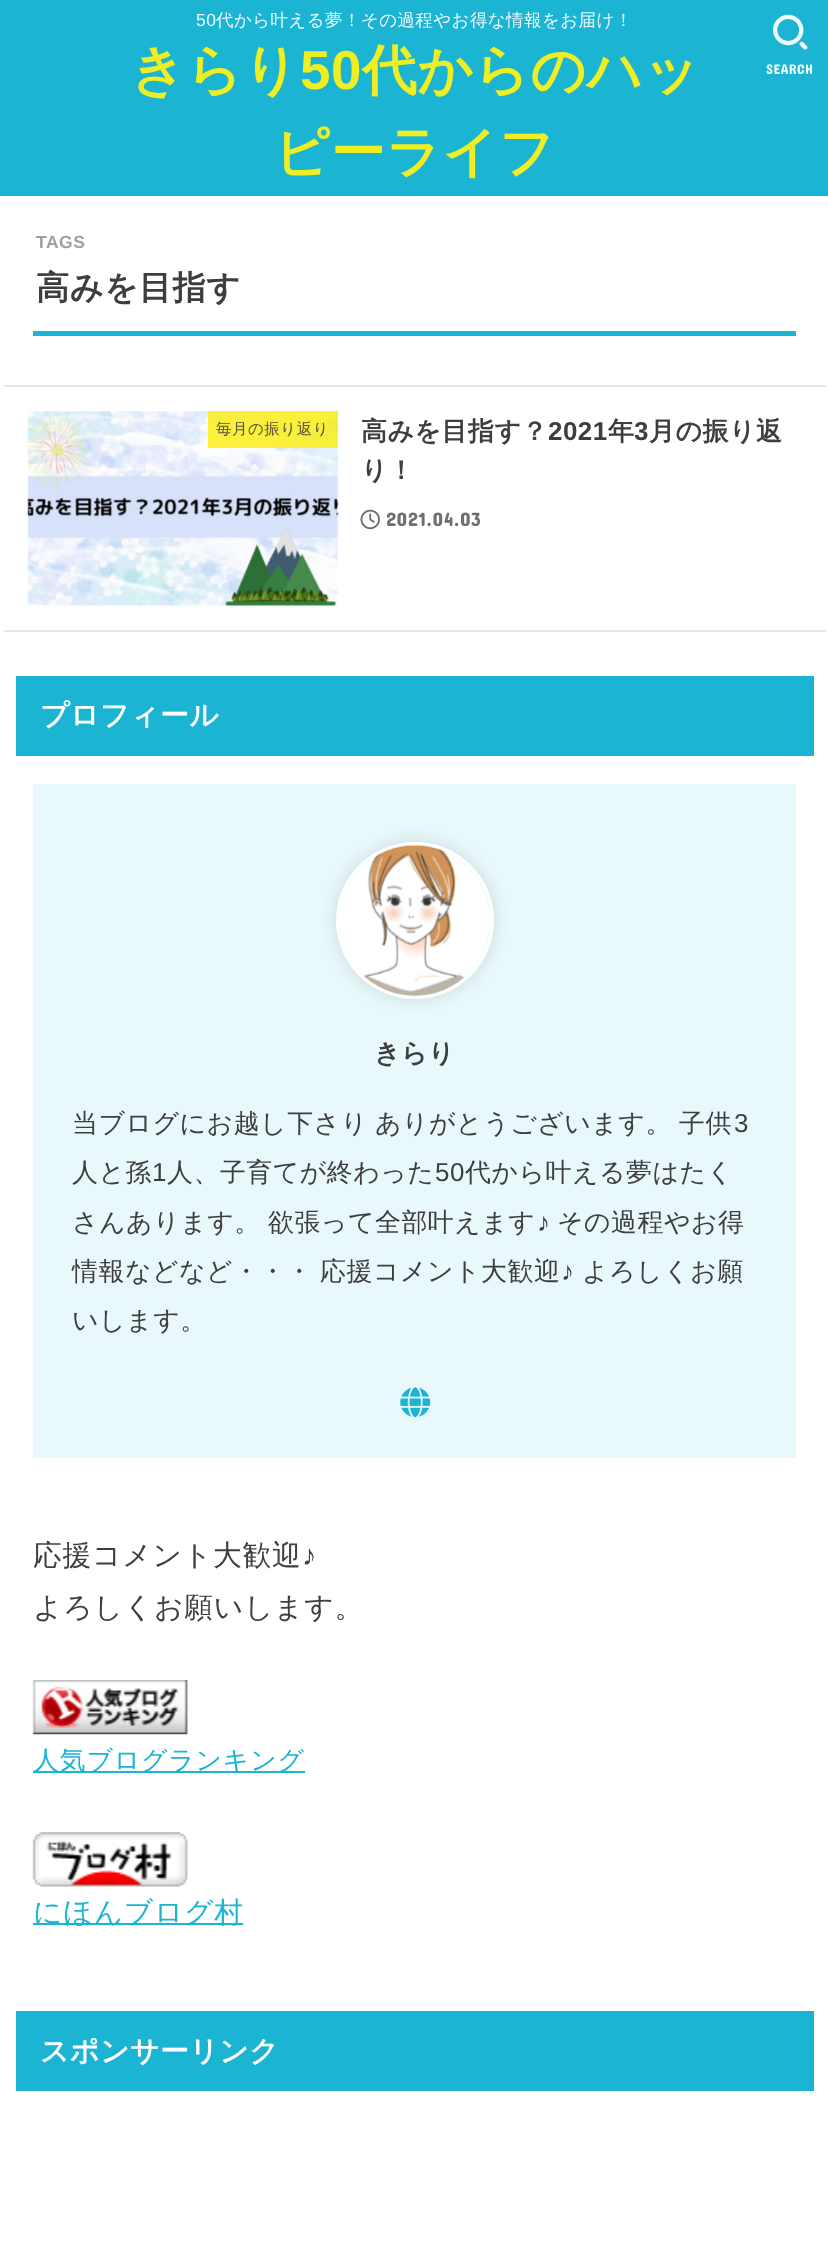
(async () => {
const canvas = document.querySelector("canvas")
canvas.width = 828
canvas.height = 2250
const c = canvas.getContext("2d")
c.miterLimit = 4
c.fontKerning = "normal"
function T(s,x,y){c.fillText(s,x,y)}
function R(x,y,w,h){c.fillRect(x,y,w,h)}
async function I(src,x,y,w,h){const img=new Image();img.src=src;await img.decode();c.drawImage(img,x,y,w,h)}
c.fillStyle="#1bb4d3"
R(0,0,828,2250)
c.letterSpacing="0.4px"
c.font="17.5px Liberation Sans"
c.fillStyle="#edf9fc"
T("50",196,26)
c.font="500 17.5px WenQuanYi Zen Hei"
T("代から叶える夢！その過程やお得な情報をお届け！",216,26)
c.letterSpacing="0.5px"
c.font="bold 54.75px WenQuanYi Zen Hei"
c.fillStyle="#ee2"
T("きらり",130,89)
c.font="bold 54.75px Liberation Sans"
T("50",300,89)
c.font="bold 54.75px WenQuanYi Zen Hei"
T("代からのハッ",362,89)
T("ピーライフ",274,171)
await I("1.png",772,14,36,36)
c.font="14px Concert One"
c.fillStyle="#edf9fc"
T("SEARCH",766,74)
c.fillStyle="#fff"
R(0,196,828,2054)
c.fillStyle="#1bb4d3"
R(33,331,763,5)
c.font="bold 17.5px Liberation Sans"
c.fillStyle="#9f9f9f"
T("TAGS",36,248)
c.font="bold 33.25px WenQuanYi Zen Hei"
c.fillStyle="#3e3e3e"
T("高みを目指す",36,299)
c.fillStyle="#e6e6e6"
R(4,385,822,2)
R(4,630,822,2)
await I("2.png",27,411,312,196)
c.fillStyle="#fcee21e0"
R(208,411,130,37)
c.font="500 15.5px WenQuanYi Zen Hei"
c.fillStyle="#55533e"
T("毎月の振り返り",216,434)
c.font="bold 25.95px WenQuanYi Zen Hei"
c.fillStyle="#3e3e3e"
T("高みを目指す？",361,440)
c.font="bold 25.95px Liberation Sans"
T("2021",548,440)
c.font="bold 25.95px WenQuanYi Zen Hei"
T("年",608,440)
c.font="bold 25.95px Liberation Sans"
T("3",634,440)
c.font="bold 25.95px WenQuanYi Zen Hei"
T("月の振り返",649,440)
T("り！",361,479)
await I("3.png",360,509,20,21)
c.font="19.5px Concert One"
c.fillStyle="#6e6e6e"
T("2021.04.03",386,526)
c.fillStyle="#1bb4d3"
R(16,676,798,80)
c.font="bold 28.8px WenQuanYi Zen Hei"
c.fillStyle="#fff"
T("プロフィール",40,725)
c.fillStyle="#e9f8fb"
R(33,784,763,674)
c.fillStyle="#0000001f"
c.filter="blur(9px)"
c.beginPath()
c.roundRect(336,842,158,157,78.5)
c.fill()
c.filter="none"
c.beginPath()
c.roundRect(338,844,154,153,76.5)
c.strokeStyle="#fff"
c.lineWidth=4
c.stroke()
await I("4.png",340,844,150,152)
c.font="bold 25.95px WenQuanYi Zen Hei"
c.fillStyle="#3e3e3e"
T("きらり",374,1062)
c.wordSpacing="-1px"
c.font="500 25.95px WenQuanYi Zen Hei"
T("当ブログにお越し下さり ありがとうございます。 子供",72,1132)
c.wordSpacing="0px"
c.font="25.95px Liberation Sans"
T("3",734,1132)
c.font="500 25.95px WenQuanYi Zen Hei"
T("人と孫",72,1181)
c.font="25.95px Liberation Sans"
T("1",152,1181)
c.font="500 25.95px WenQuanYi Zen Hei"
T("人、子育てが終わった",167,1181)
c.font="25.95px Liberation Sans"
T("50",435,1181)
c.font="500 25.95px WenQuanYi Zen Hei"
T("代から叶える夢はたく",465,1181)
c.wordSpacing="-1px"
T("さんあります。 欲張って全部叶えます",72,1231)
c.wordSpacing="0px"
c.font="25.95px Liberation Sans"
T("♪",537,1231)
c.font="500 25.95px WenQuanYi Zen Hei"
T("その過程やお得",557,1231)
T("情報などなど・・・",72,1280)
T("応援コメント大歓迎",320,1280)
c.font="25.95px Liberation Sans"
T("♪",561,1280)
c.font="500 25.95px WenQuanYi Zen Hei"
T("よろしくお願",582,1280)
T("いします。",72,1329)
await I("5.png",400,1387,31,31)
c.letterSpacing="0.75px"
c.font="500 28.8px WenQuanYi Zen Hei"
T("応援コメント大歓迎",33,1565)
c.font="28.8px Liberation Sans"
T("♪",302,1565)
c.font="500 28.8px WenQuanYi Zen Hei"
T("よろしくお願いします。",33,1617)
await I("6.png",32,1680,156,55)
c.fillStyle="#1bb4d3"
R(33,1771,272,2)
c.font="500 25.95px WenQuanYi Zen Hei"
T("人気ブログランキング",33,1769)
await I("7.png",32,1832,156,55)
R(33,1923,210,2)
c.font="500 28.8px WenQuanYi Zen Hei"
T("にほんブログ村",33,1922)
R(16,2011,798,80)
c.letterSpacing="0.5px"
c.font="bold 28.8px WenQuanYi Zen Hei"
c.fillStyle="#fff"
T("スポンサーリンク",40,2061)
})()
